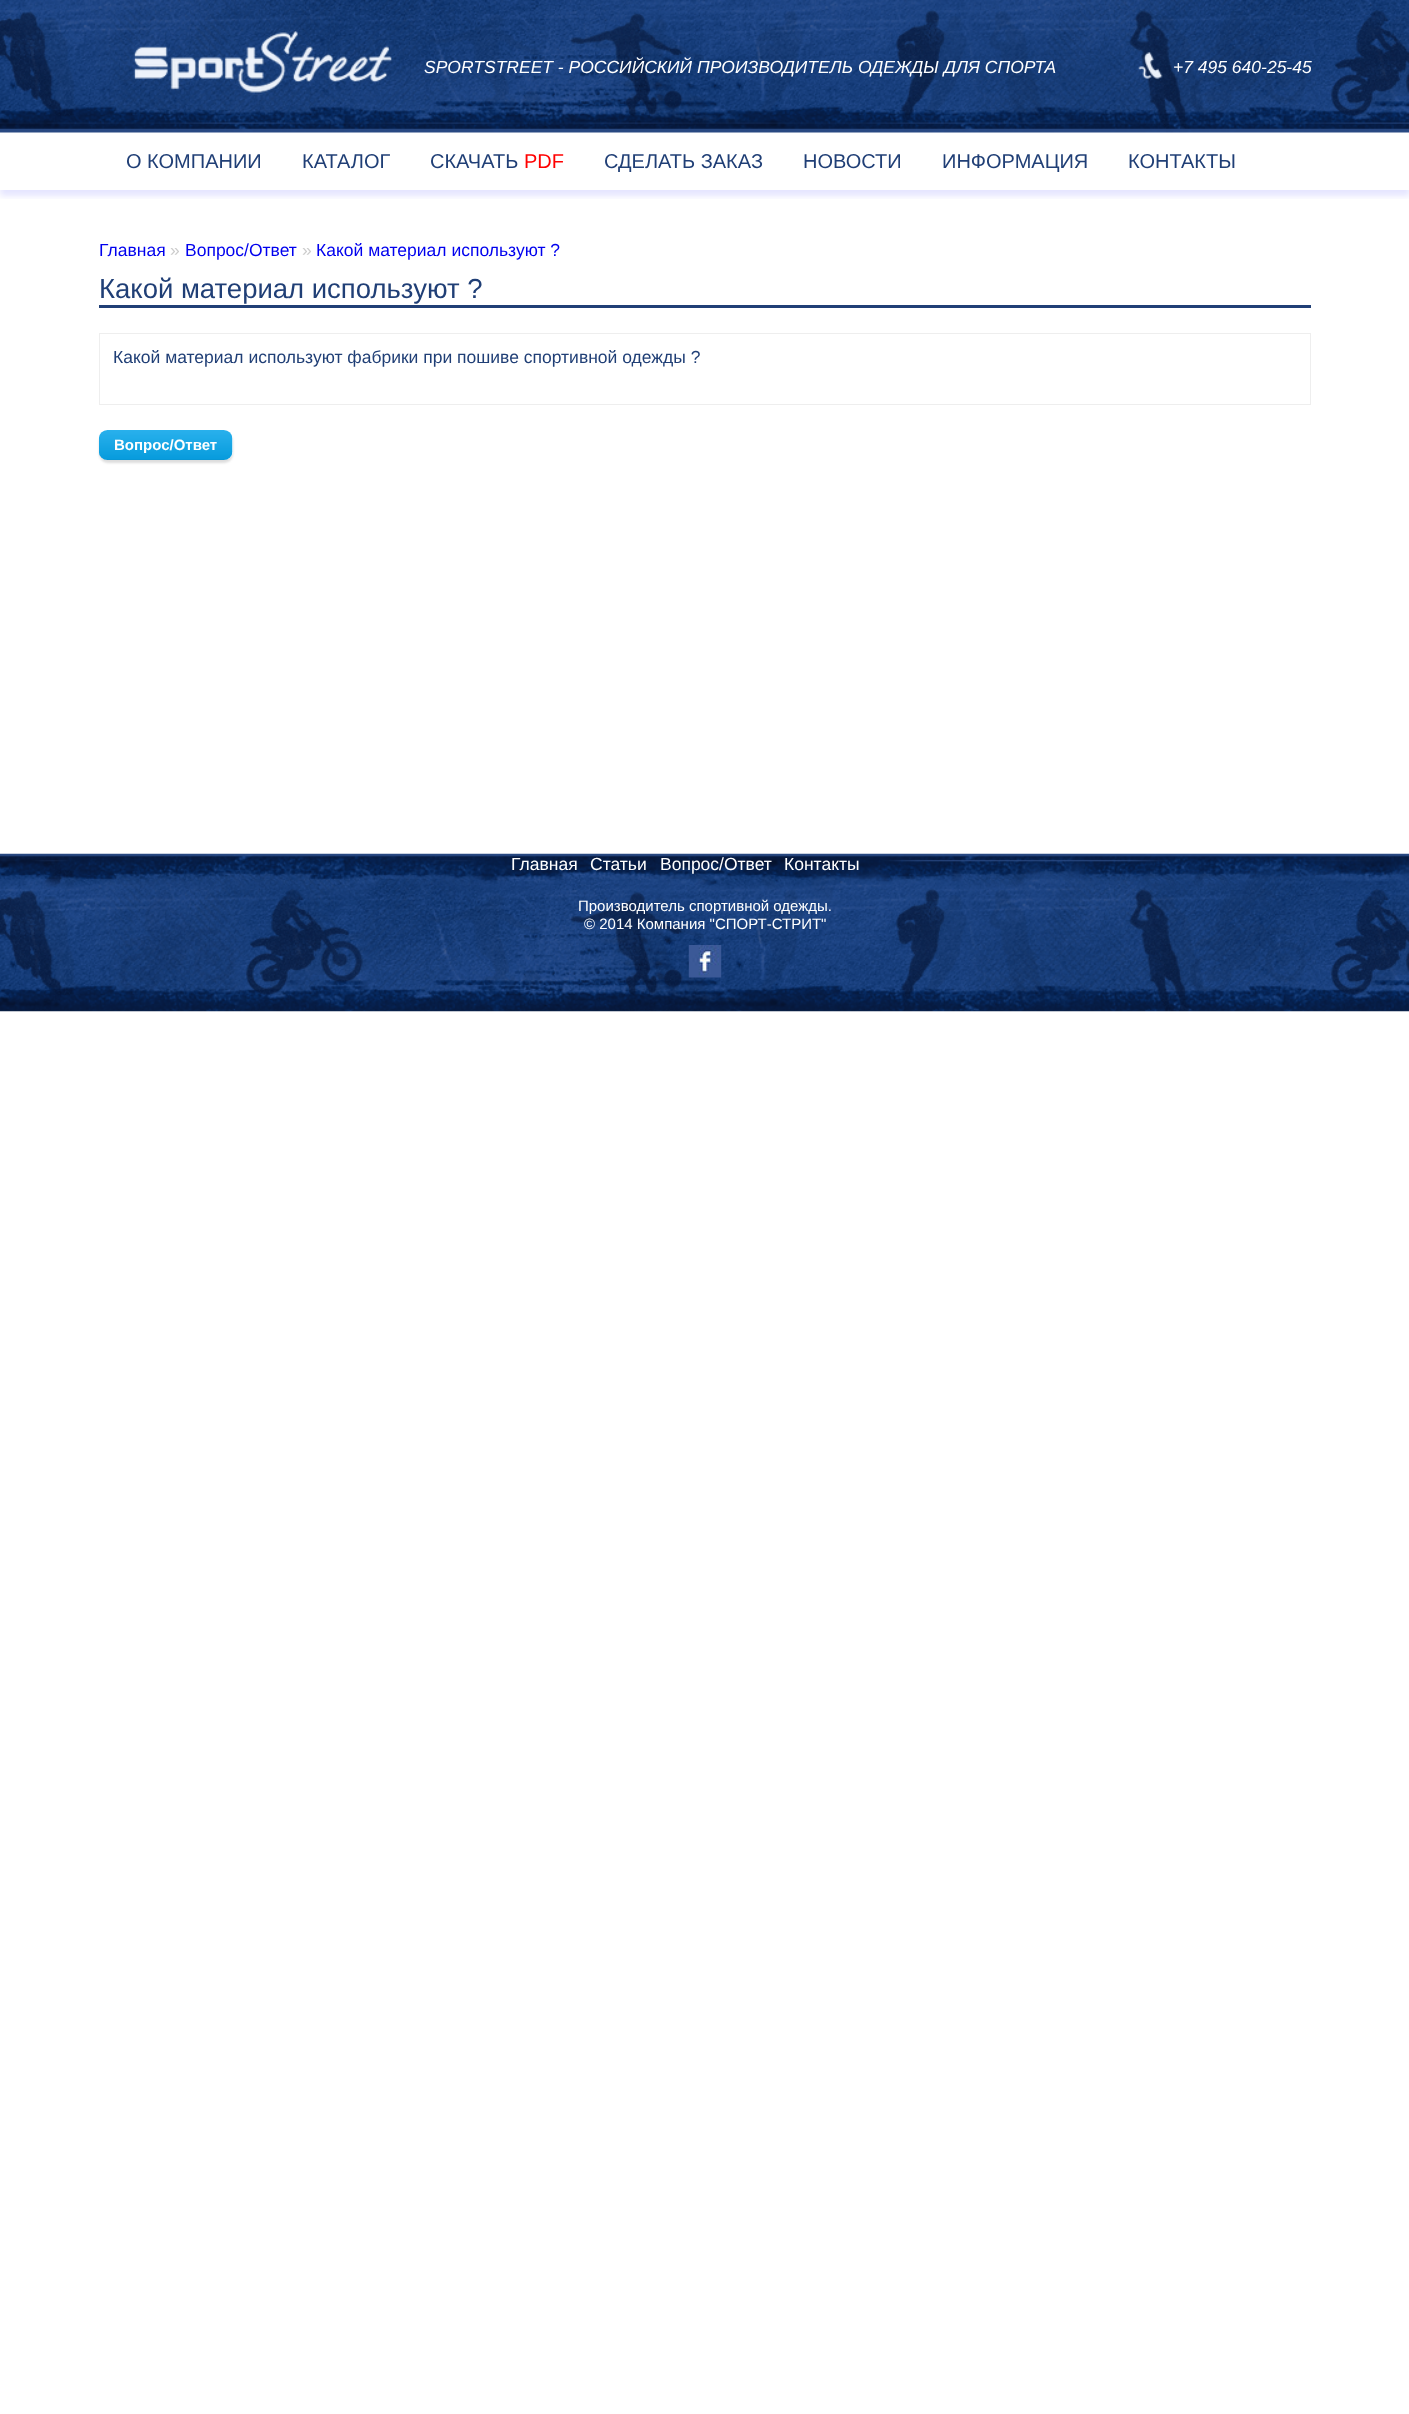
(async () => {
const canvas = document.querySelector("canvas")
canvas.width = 1409
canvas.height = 2414
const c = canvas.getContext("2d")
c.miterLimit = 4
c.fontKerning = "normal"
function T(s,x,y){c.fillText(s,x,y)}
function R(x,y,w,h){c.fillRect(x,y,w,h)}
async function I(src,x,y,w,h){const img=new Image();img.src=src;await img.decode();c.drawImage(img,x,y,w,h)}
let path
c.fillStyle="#fff"
R(0,0,1409,2414)
await I("1.png",0,0,1409,133)
await I("2.png",133,29,259,66)
c.font="italic 17.5px Liberation Sans"
T("SPORTSTREET - РОССИЙСКИЙ ПРОИЗВОДИТЕЛЬ ОДЕЖДЫ ДЛЯ СПОРТА",424,73)
await I("3.png",1138,51,25,28)
T("+7 495 640-25-45",1173,73)
c.save()
c.beginPath()
c.rect(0,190,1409,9)
c.clip()
c.fillStyle="#0000ff1a"
c.filter="blur(3px)"
c.beginPath()
c.rect(0,139,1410,57)
c.fill()
c.filter="none"
c.restore()
c.font="20px Liberation Sans"
c.fillStyle="#203f76"
T("О КОМПАНИИ",126,168)
T("КАТАЛОГ",302,168)
T("СКАЧАТЬ",430,168)
c.fillStyle="#f00"
T("PDF",524,168)
c.fillStyle="#203f76"
T("СДЕЛАТЬ ЗАКАЗ",604,168)
T("НОВОСТИ",803,168)
T("ИНФОРМАЦИЯ",942,168)
T("КОНТАКТЫ",1128,168)
c.font="17.5px Liberation Sans"
c.fillStyle="#00e"
T("Главная",99,256)
c.fillStyle="#ccc"
T("»",170,256)
c.fillStyle="#00e"
T("Вопрос/Ответ",185,256)
c.fillStyle="#ccc"
T("»",302,256)
c.fillStyle="#00e"
T("Какой материал используют ?",316,256)
c.fillStyle="#203f76"
R(99,305,1212,3)
c.font="27.5px Liberation Sans"
T("Какой материал используют ?",99,298)
c.strokeStyle="#eee"
c.strokeRect(99.5,333.5,1211,71)
c.font="17.5px Liberation Sans"
T("Какой материал используют фабрики при пошиве спортивной одежды ?",113,363)
c.save()
path = new Path2D("M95 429h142v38h-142zm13 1h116c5 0 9 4 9 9v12c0 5-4 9-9 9h-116c-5 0-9-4-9-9v-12c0-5 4-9 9-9z")
c.clip(path,"evenodd")
c.fillStyle="#ddd"
c.filter="blur(1px)"
c.beginPath()
c.roundRect(99,433,134,30,9)
c.fill()
c.filter="none"
c.restore()
await I("4.png",99,430,134,30)
c.font="bold 15px Liberation Sans"
c.fillStyle="#fff"
T("Вопрос/Ответ",114,450)
await I("5.png",0,853,1409,159)
c.font="17.5px Liberation Sans"
T("Главная",511,870)
T("Статьи",590,870)
T("Вопрос/Ответ",660,870)
T("Контакты",784,870)
c.font="15px Liberation Sans"
T("Производитель спортивной одежды.",578,911)
T("© 2014 Компания \"СПОРТ-СТРИТ\"",584,929)
await I("6.png",688,945,34,33)
})()
